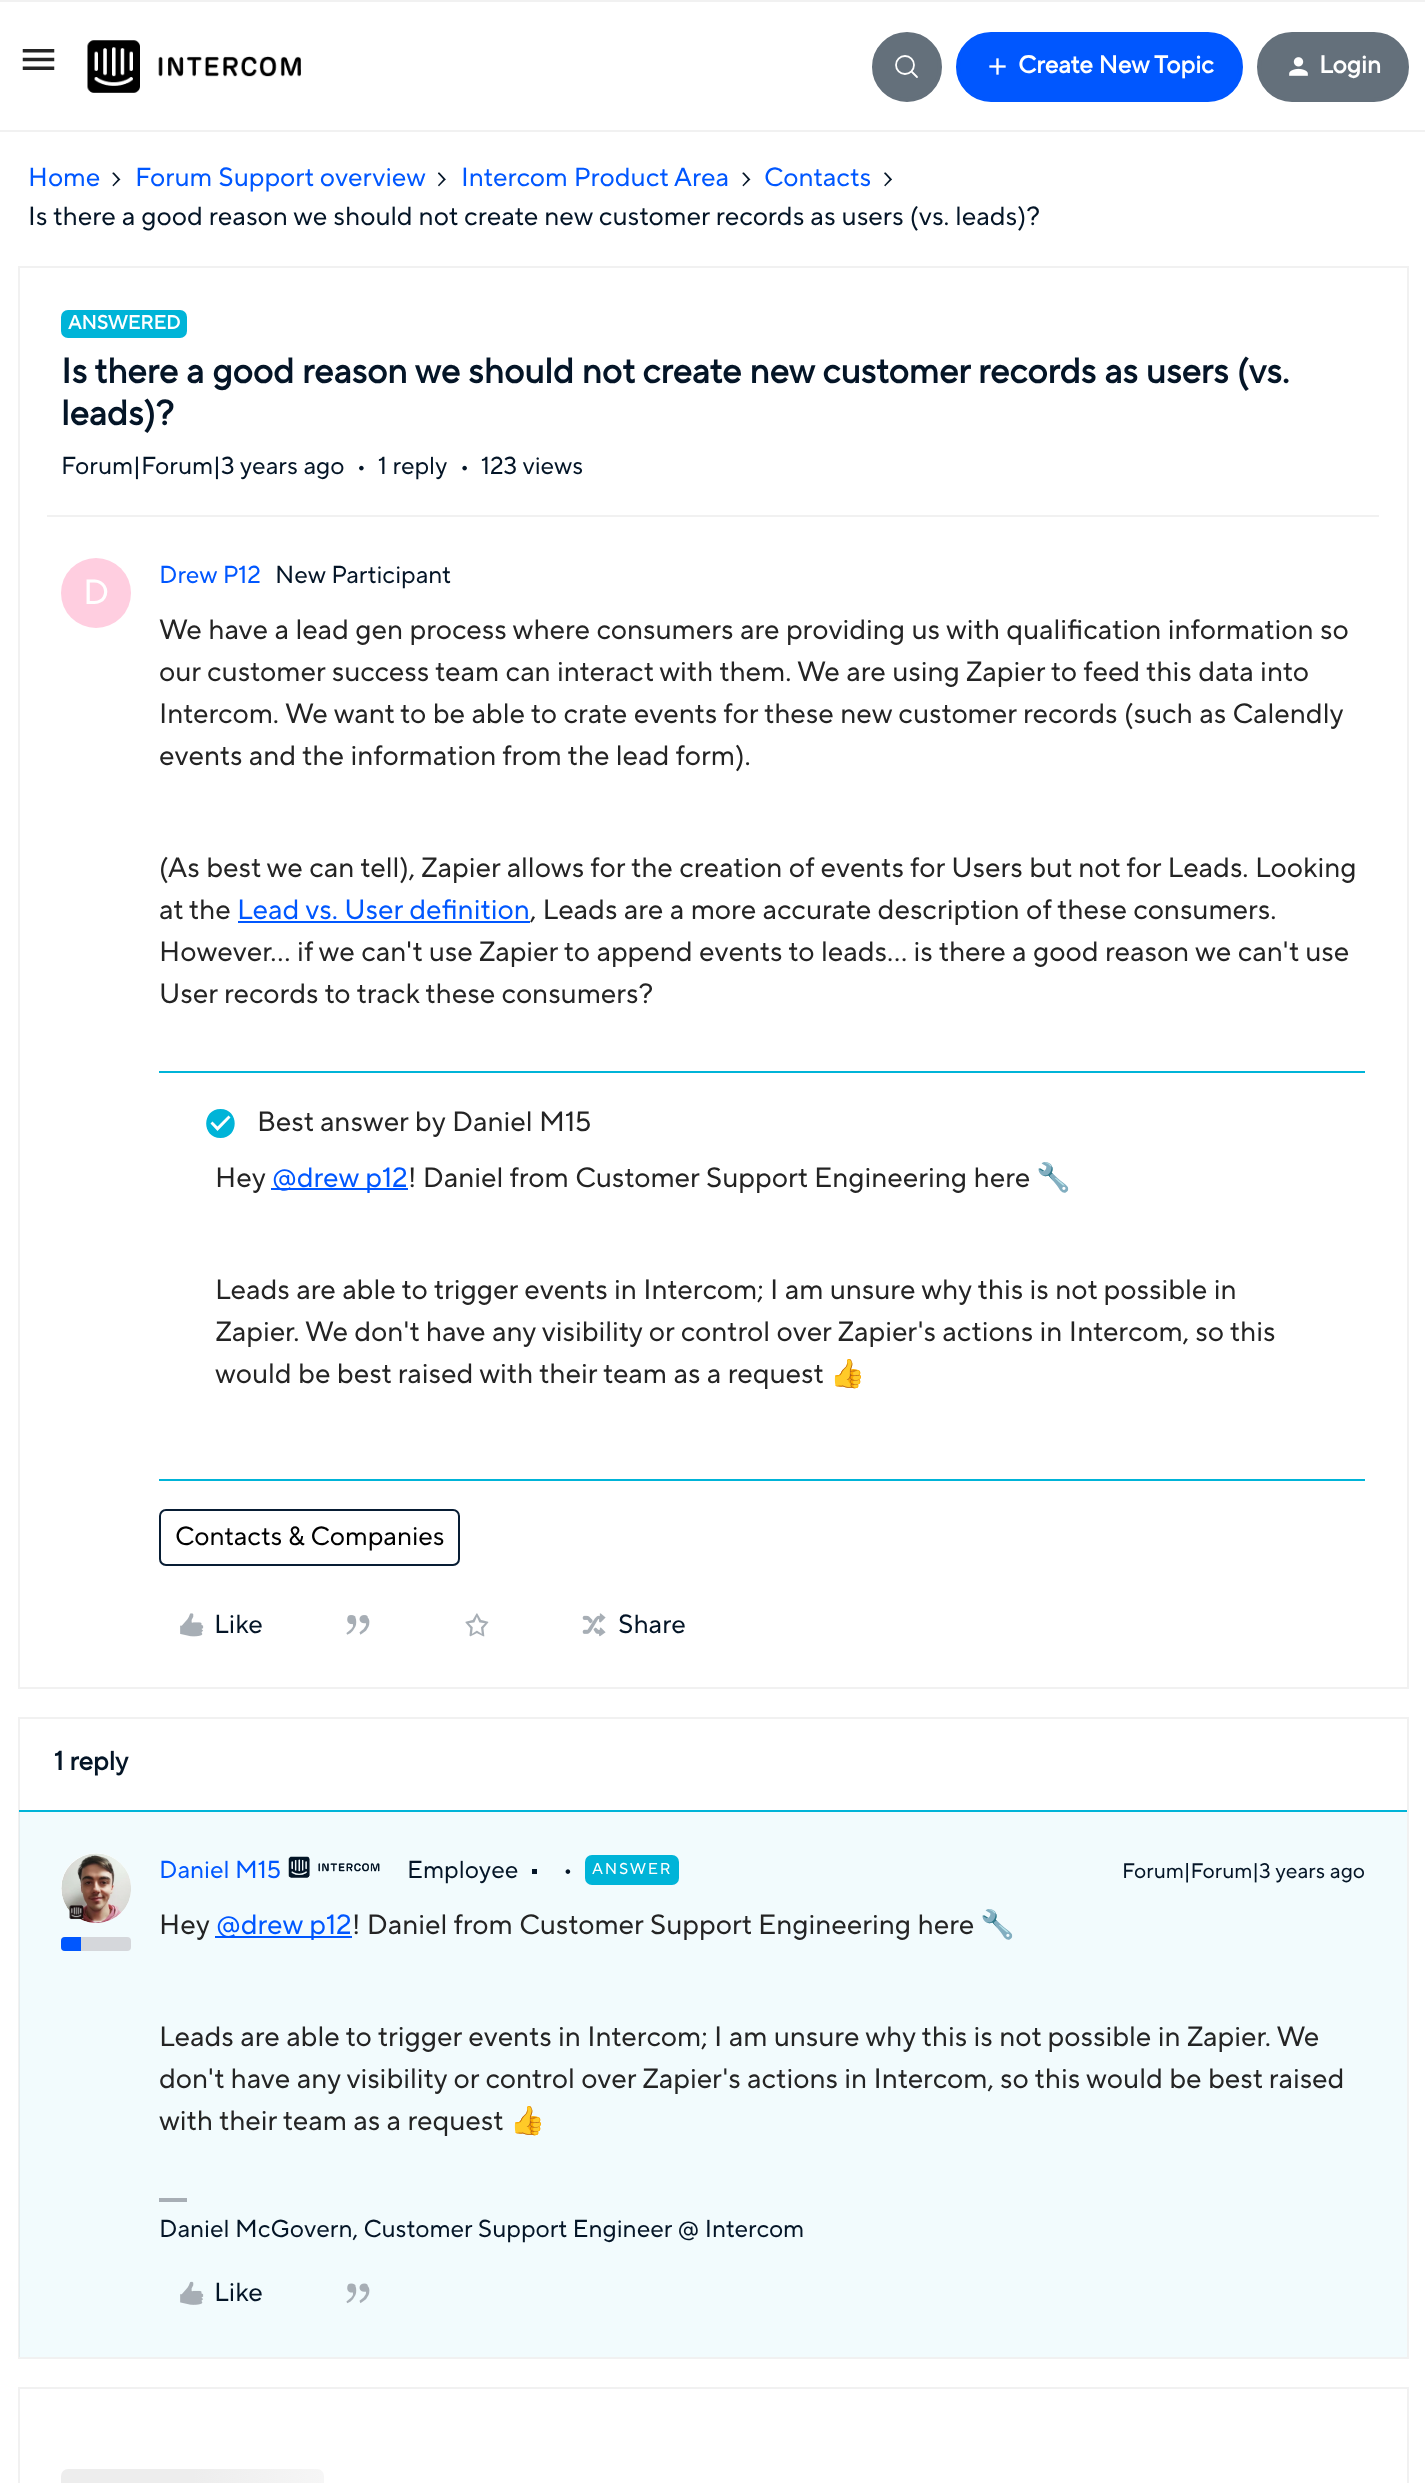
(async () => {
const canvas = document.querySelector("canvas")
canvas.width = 1425
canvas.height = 2483
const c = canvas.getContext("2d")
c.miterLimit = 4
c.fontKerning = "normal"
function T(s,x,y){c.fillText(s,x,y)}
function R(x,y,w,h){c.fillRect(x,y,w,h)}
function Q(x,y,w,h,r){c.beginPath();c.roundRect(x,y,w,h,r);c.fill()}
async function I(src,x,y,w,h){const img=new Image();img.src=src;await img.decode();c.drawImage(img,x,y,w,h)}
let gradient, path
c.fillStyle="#fff"
R(0,0,1425,2483)
c.fillStyle="#f1f1f1"
R(0,0,1425,2)
R(0,130,1425,2)
await I("1.png",22,49,33,21)
await I("2.png",87,40,214,53)
c.fillStyle="#64707b"
c.beginPath()
c.arc(907,67,33,0,7)
c.fill()
c.strokeStyle="#64707b"
c.lineWidth=4
c.stroke()
c.beginPath()
c.arc(905,65,9,0,7)
c.strokeStyle="#fff"
c.lineWidth=1.8
c.stroke()
path = new Path2D("M912 72l5 5")
c.lineCap="round"
c.stroke(path)
c.fillStyle="#0057ff"
c.beginPath()
c.roundRect(958,34,283,66,33)
c.fill()
c.strokeStyle="#0057ff"
c.lineWidth=4
c.stroke()
await I("3.png",989,58,17,17)
c.font="bold 24.5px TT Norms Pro"
c.fillStyle="#fff"
T("Create New Topic",1018,73)
c.fillStyle="#64707b"
c.beginPath()
c.roundRect(1259,34,148,66,33)
c.fill()
c.strokeStyle="#64707b"
c.stroke()
await I("4.png",1289,57,19,19)
c.fillStyle="#fff"
T("Login",1319,73)
c.font="26.25px TT Norms Pro"
c.fillStyle="#0057ff"
T("Home",28,186)
await I("5.png",112,172,9,15)
T("Forum Support overview",135,186)
await I("6.png",438,172,8,15)
T("Intercom Product Area",461,186)
await I("5.png",742,172,9,15)
T("Contacts",764,186)
await I("7.png",884,172,8,15)
c.fillStyle="#041527"
T("Is there a good reason we should not create new customer records as users (vs. leads)?",28,225)
c.strokeStyle="#f1f1f1"
c.lineWidth=2
c.strokeRect(19,267,1389,1421)
c.fillStyle="#00b4d8"
Q(61,310,126,28,7)
c.font="bold 19.25px TT Norms Pro"
c.fillStyle="#fff"
T("ANSWERED",68,329)
c.font="bold 35px TT Norms Pro"
c.fillStyle="#041527"
T("Is there a good reason we should not create new customer records as users (vs.",61,383)
T("leads)?",61,425)
c.font="24.5px TT Norms Pro"
T("Forum|Forum|3 years ago",61,474)
await I("8.png",359,465,5,6)
T("1 reply",378,474)
await I("9.png",462,465,5,6)
T("123 views",481,474)
c.fillStyle="#f1f1f1"
R(47,515,1332,2)
c.fillStyle="#ffcee0"
c.beginPath()
c.arc(96,593,35,0,7)
c.fill()
c.font="35px TT Norms Pro"
c.fillStyle="#fff"
T("D",83,604)
c.font="24.5px TT Norms Pro"
c.fillStyle="#0057ff"
T("Drew P12",159,583)
c.fillStyle="#041527"
T("New Participant",275,583)
c.font="28px TT Norms Pro"
c.fillStyle="#242424"
T("We have a lead gen process where consumers are providing us with qualification information so",159,639)
T("our customer success team can interact with them. We are using Zapier to feed this data into",159,681)
T("Intercom.",159,723)
T("We want to be able to crate events for these new customer records (such as Calendly",285,723)
T("events and the information from the lead form).",159,765)
T("(As best we can tell), Zapier allows for the creation of events for Users but not for Leads. Looking",159,877)
T("at the",159,919)
c.fillStyle="#0057ff"
T("Lead vs. User definition",237,919)
R(238,921,292,2)
c.fillStyle="#242424"
T(", Leads are a more accurate description of these consumers.",530,919)
T("However... if we can't use Zapier to append events to leads... is there a good reason we can't use",159,961)
T("User records to track these consumers?",159,1003)
c.fillStyle="#00b4d8"
R(159,1071,1206,2)
R(159,1479,1206,2)
path = new Path2D("M220.5 1109c-19 0-19 29 0 29c19 0 19-29 0-29zm-3 22l-7-7.5l2-2l5 5l11-11l2 2z")
c.fill(path)
c.fillStyle="#242424"
T("Best answer by",257,1131)
T("Daniel M15",452,1131)
T("Hey",215,1187)
c.fillStyle="#0057ff"
R(271,1188,137,2)
T("@drew p12",272,1187)
c.fillStyle="#242424"
T("! Daniel from Customer Support Engineering here",408,1187)
c.font="28px Noto Color Emoji"
T("🔧",1036,1187)
c.font="28px TT Norms Pro"
T("Leads are able to trigger events in Intercom; I am unsure why this is not possible in",215,1299)
T("Zapier. We don't have any visibility or control over Zapier's actions in Intercom, so this",215,1341)
T("would be best raised with their team as a request",215,1383)
c.font="28px Noto Color Emoji"
T("👍",830,1383)
c.beginPath()
c.roundRect(160,1510,299,55,6)
c.strokeStyle="#081d34"
c.stroke()
c.font="26.25px TT Norms Pro"
c.fillStyle="#000"
T("Contacts & Companies",175,1545)
await I("10.png",180,1613,24,24)
c.fillStyle="#041527"
T("Like",214,1633)
await I("11.png",346,1615,24,20)
await I("12.png",465,1613,24,24)
await I("13.png",582,1613,24,24)
T("Share",618,1633)
c.strokeStyle="#f1f1f1"
c.strokeRect(19,1718,1389,640)
c.font="bold 26.25px TT Norms Pro"
T("1 reply",54,1770)
c.fillStyle="#00b4d80d"
R(19,1812,1388,545)
c.fillStyle="#00b4d8"
R(19,1810,1388,2)
c.fillStyle="#fff"
c.beginPath()
c.arc(96,1888,35,0,7)
c.fill()
await I("14.png",61,1853,70,70)
await I("15.png",69,1905,15,15)
c.fillStyle="#d5d7db"
Q(61,1937,70,14,4)
c.fillStyle="#0057ff"
c.beginPath()
c.roundRect(61,1937,20,14,[4,0,0,4])
c.fill()
c.font="24.5px TT Norms Pro"
T("Daniel M15",159,1878)
await I("16.png",288,1856,92,22)
c.fillStyle="#041527"
T("Employee",407,1878)
R(532,1869,5,5)
await I("17.png",565,1869,6,5)
c.fillStyle="#00b4d8"
Q(585,1855,94,30,7)
c.letterSpacing="1.75px"
c.font="15.75px TT Norms Pro"
c.fillStyle="#fff"
T("ANSWER",592,1874)
c.letterSpacing="0px"
c.font="21px TT Norms Pro"
c.fillStyle="#041527"
T("Forum|Forum|3 years ago",1122,1878)
c.font="28px TT Norms Pro"
c.fillStyle="#242424"
T("Hey",159,1934)
c.fillStyle="#0057ff"
R(215,1936,137,2)
T("@drew p12",216,1934)
c.fillStyle="#242424"
T("! Daniel from Customer Support Engineering here",352,1934)
c.font="28px Noto Color Emoji"
T("🔧",980,1934)
c.font="28px TT Norms Pro"
T("Leads are able to trigger events in Intercom; I am unsure why this is not possible in Zapier. We",159,2046)
T("don't have any visibility or control over Zapier's actions in Intercom, so this would be best raised",159,2088)
T("with their team as a request",159,2130)
c.font="28px Noto Color Emoji"
T("👍",510,2130)
c.fillStyle="#a7aeb5"
R(159,2198,28,4)
c.font="24.5px TT Norms Pro"
c.fillStyle="#041527"
T("Daniel McGovern, Customer Support Engineer @ Intercom",159,2237)
await I("18.png",180,2281,24,24)
c.font="26.25px TT Norms Pro"
T("Like",214,2301)
await I("19.png",346,2283,24,21)
c.strokeRect(19,2388,1389,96)
gradient = c.createLinearGradient(61,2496,586,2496)
gradient.addColorStop(.25,"#ededed")
gradient.addColorStop(.5,"#f6f6f6")
gradient.addColorStop(.75,"#ededed")
c.fillStyle = gradient
Q(61,2469,263,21,7)
})()
